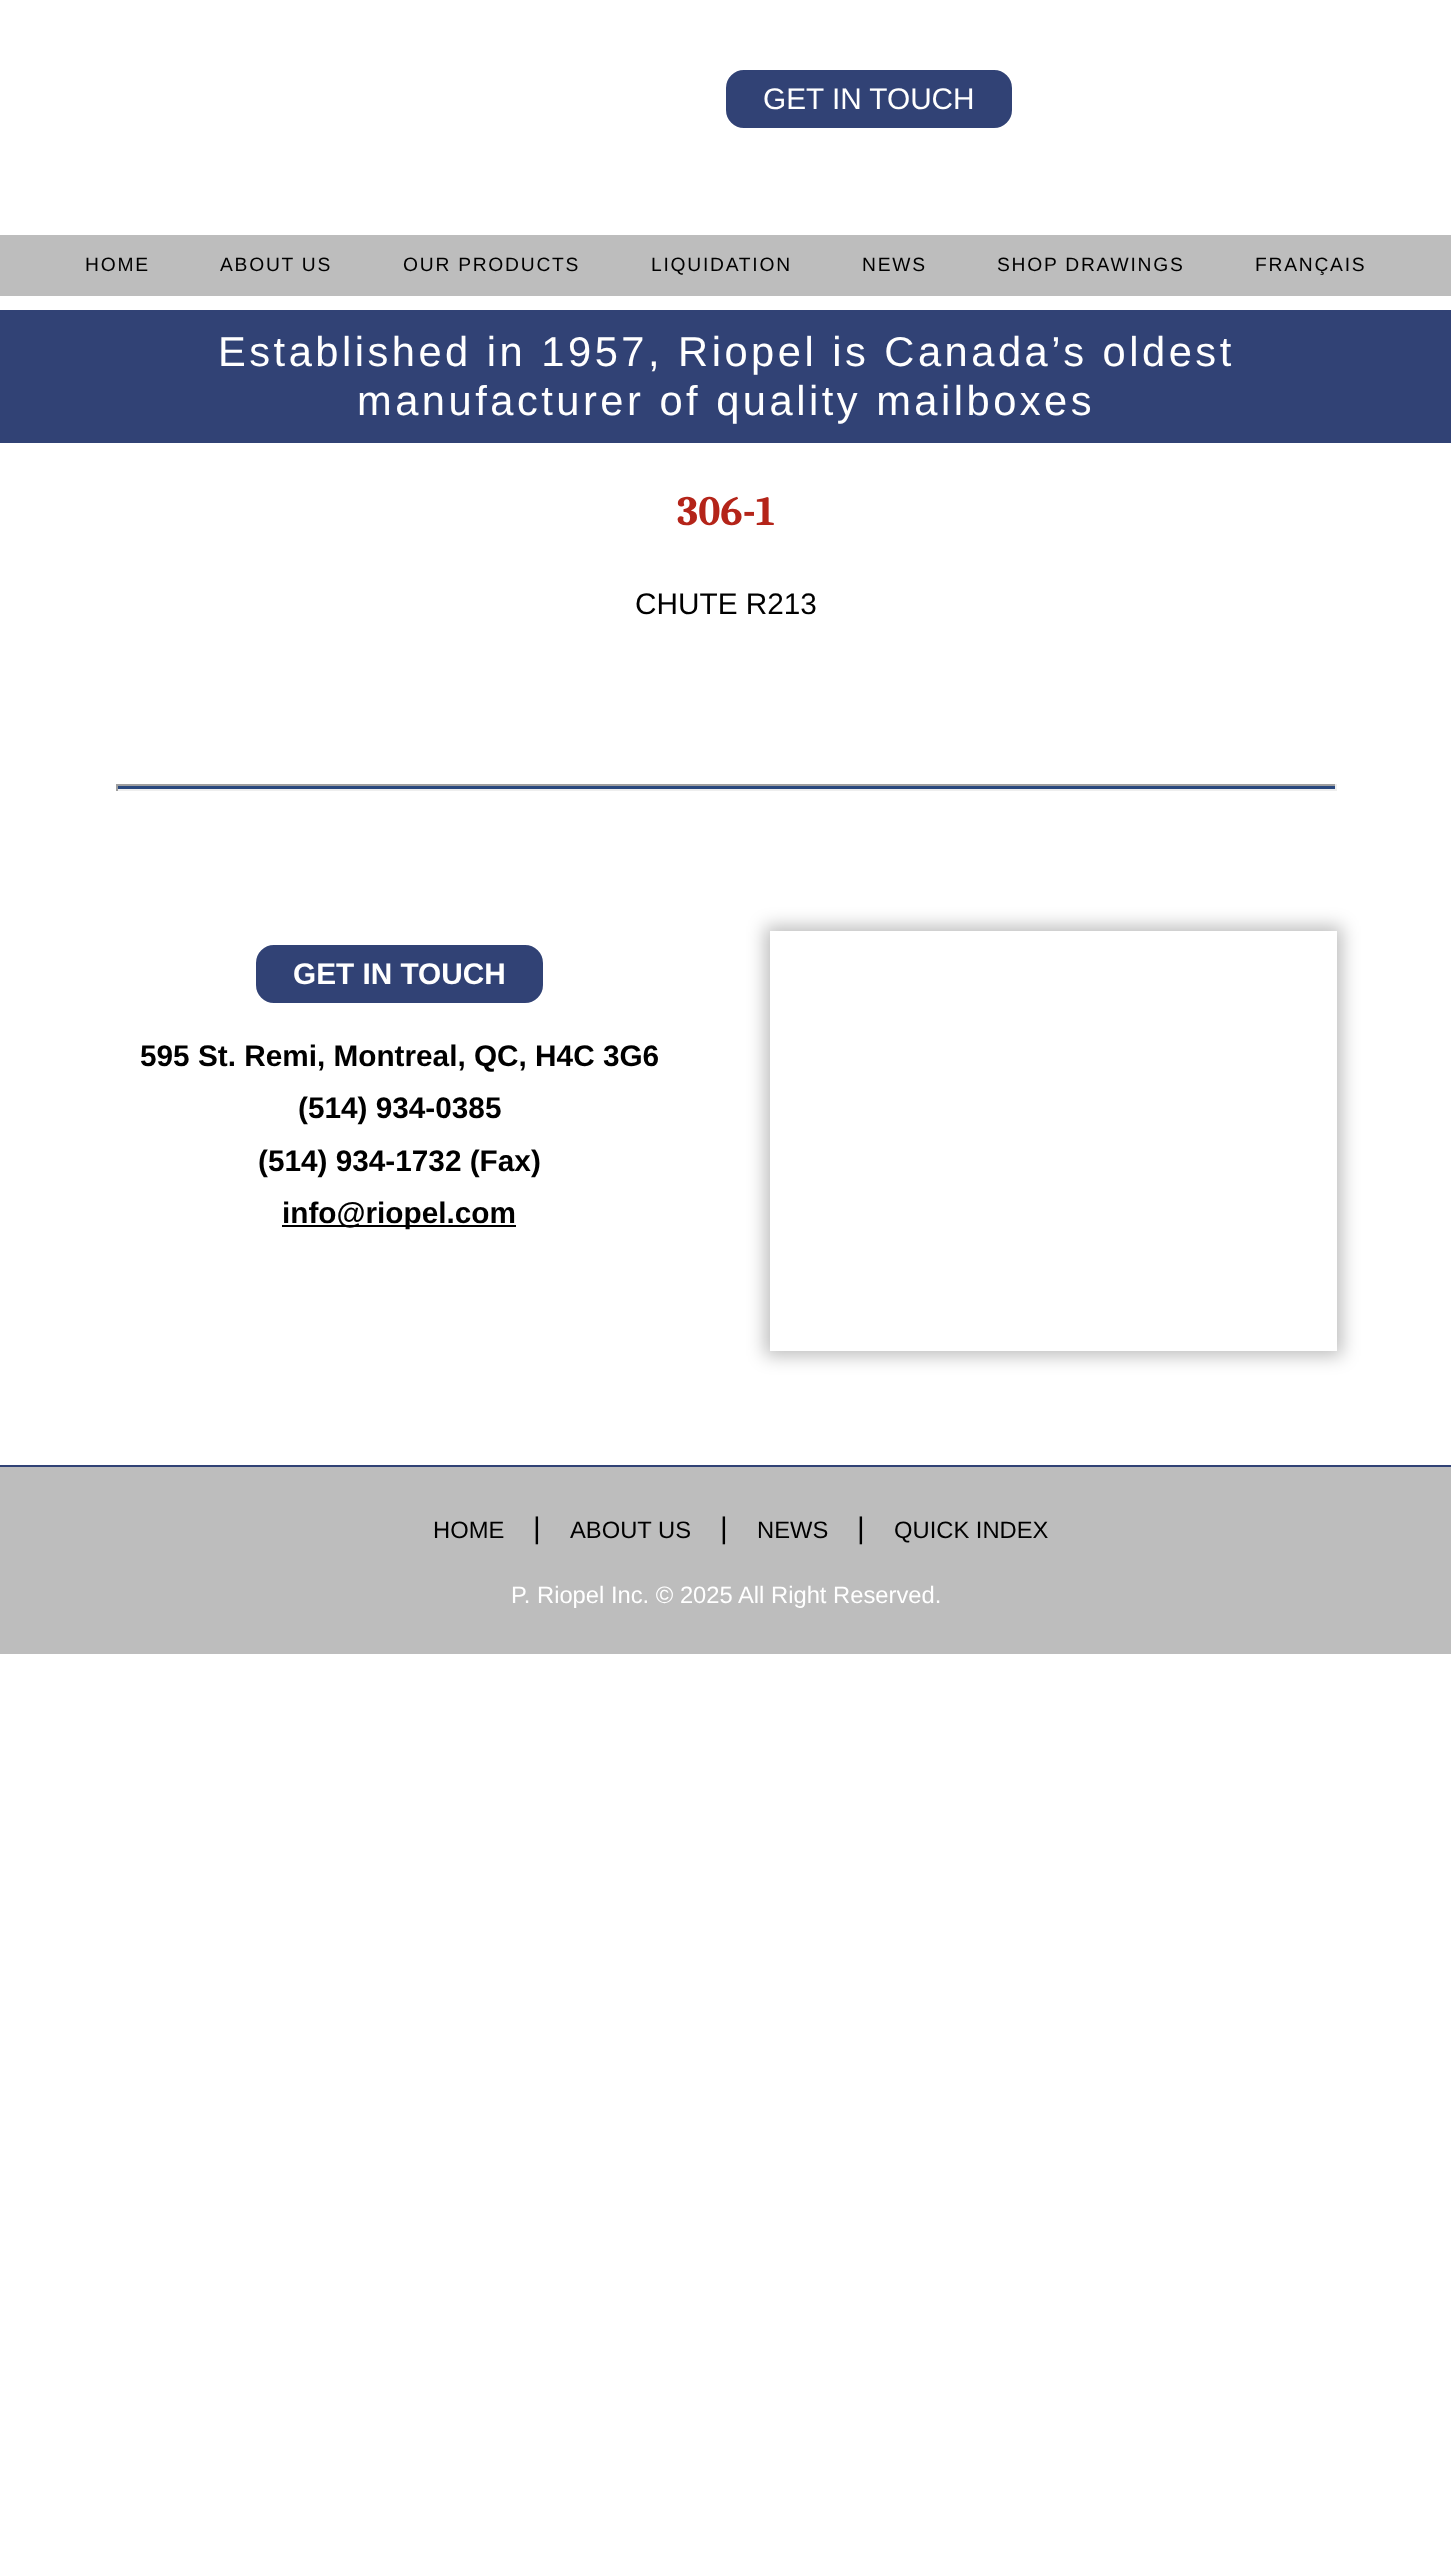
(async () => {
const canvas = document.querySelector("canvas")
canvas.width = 1451
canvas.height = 2569
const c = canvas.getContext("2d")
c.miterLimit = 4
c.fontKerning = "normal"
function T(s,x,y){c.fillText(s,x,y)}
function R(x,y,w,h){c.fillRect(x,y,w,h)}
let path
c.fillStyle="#fff"
R(0,0,1451,2569)
c.fillStyle="#314275"
c.beginPath()
c.roundRect(727,71,284,56,17)
c.fill()
c.strokeStyle="#314275"
c.lineWidth=2
c.stroke()
c.font="29.75px Liberation Sans"
c.fillStyle="#fff"
T("GET IN TOUCH",763,109)
c.fillStyle="#bdbdbd"
R(0,235,1451,61)
c.letterSpacing="1.75px"
c.font="19.25px Liberation Sans"
c.fillStyle="#000"
T("HOME",85,271)
T("ABOUT US",220,271)
T("OUR PRODUCTS",403,271)
T("LIQUIDATION",651,271)
T("NEWS",862,271)
T("SHOP DRAWINGS",997,271)
T("FRANÇAIS",1255,271)
c.fillStyle="#314275"
R(0,310,1451,133)
c.letterSpacing="3.5px"
c.font="41.65px Liberation Sans"
c.fillStyle="#fff"
T("Established in 1957, Riopel is Canada’s oldest",218,366)
T("manufacturer of quality mailboxes",357,415)
c.letterSpacing="0px"
c.font="bold 41.65px Caladea"
c.fillStyle="#b42419"
T("306-1",677,525)
c.font="29.75px Liberation Sans"
c.fillStyle="#000"
T("CHUTE R213",635,614)
c.fillStyle="#29487e"
R(116,786,1221,3)
c.fillStyle="#9f9f9f"
R(116,784,1221,2)
c.fillStyle="#eee"
R(1335,784,2,7)
R(116,789,1221,2)
c.fillStyle="#9f9f9f"
R(116,784,2,7)
c.fillStyle="#314275"
c.beginPath()
c.roundRect(257,946,285,56,17)
c.fill()
c.stroke()
c.font="bold 29.75px Liberation Sans"
c.fillStyle="#fff"
T("GET IN TOUCH",293,984)
c.fillStyle="#000"
T("595 St. Remi, Montreal, QC, H4C 3G6",140,1066)
T("(514) 934-0385",298,1118)
T("(514) 934-1732 (Fax)",258,1171)
R(282,1225,234,2)
T("info@riopel.com",282,1223)
c.save()
path = new Path2D("M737 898h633v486h-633zm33 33h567v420h-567z")
c.clip(path,"evenodd")
c.fillStyle="#00000042"
c.filter="blur(9px)"
c.beginPath()
c.rect(765,926,577,430)
c.fill()
c.filter="none"
c.restore()
c.fillStyle="#bdbdbd"
R(0,1467,1451,187)
c.fillStyle="#314275"
R(0,1465,1451,2)
c.font="23.75px Liberation Sans"
c.fillStyle="#000"
T("HOME",433,1538)
c.font="29.75px Liberation Sans"
T("|",533,1538)
c.font="23.75px Liberation Sans"
T("ABOUT US",570,1538)
c.font="29.75px Liberation Sans"
T("|",720,1538)
c.font="23.75px Liberation Sans"
T("NEWS",757,1538)
c.font="29.75px Liberation Sans"
T("|",857,1538)
c.font="23.75px Liberation Sans"
T("QUICK INDEX",894,1538)
c.fillStyle="#fff"
T("P. Riopel Inc. © 2025 All Right Reserved.",511,1603)
})()
